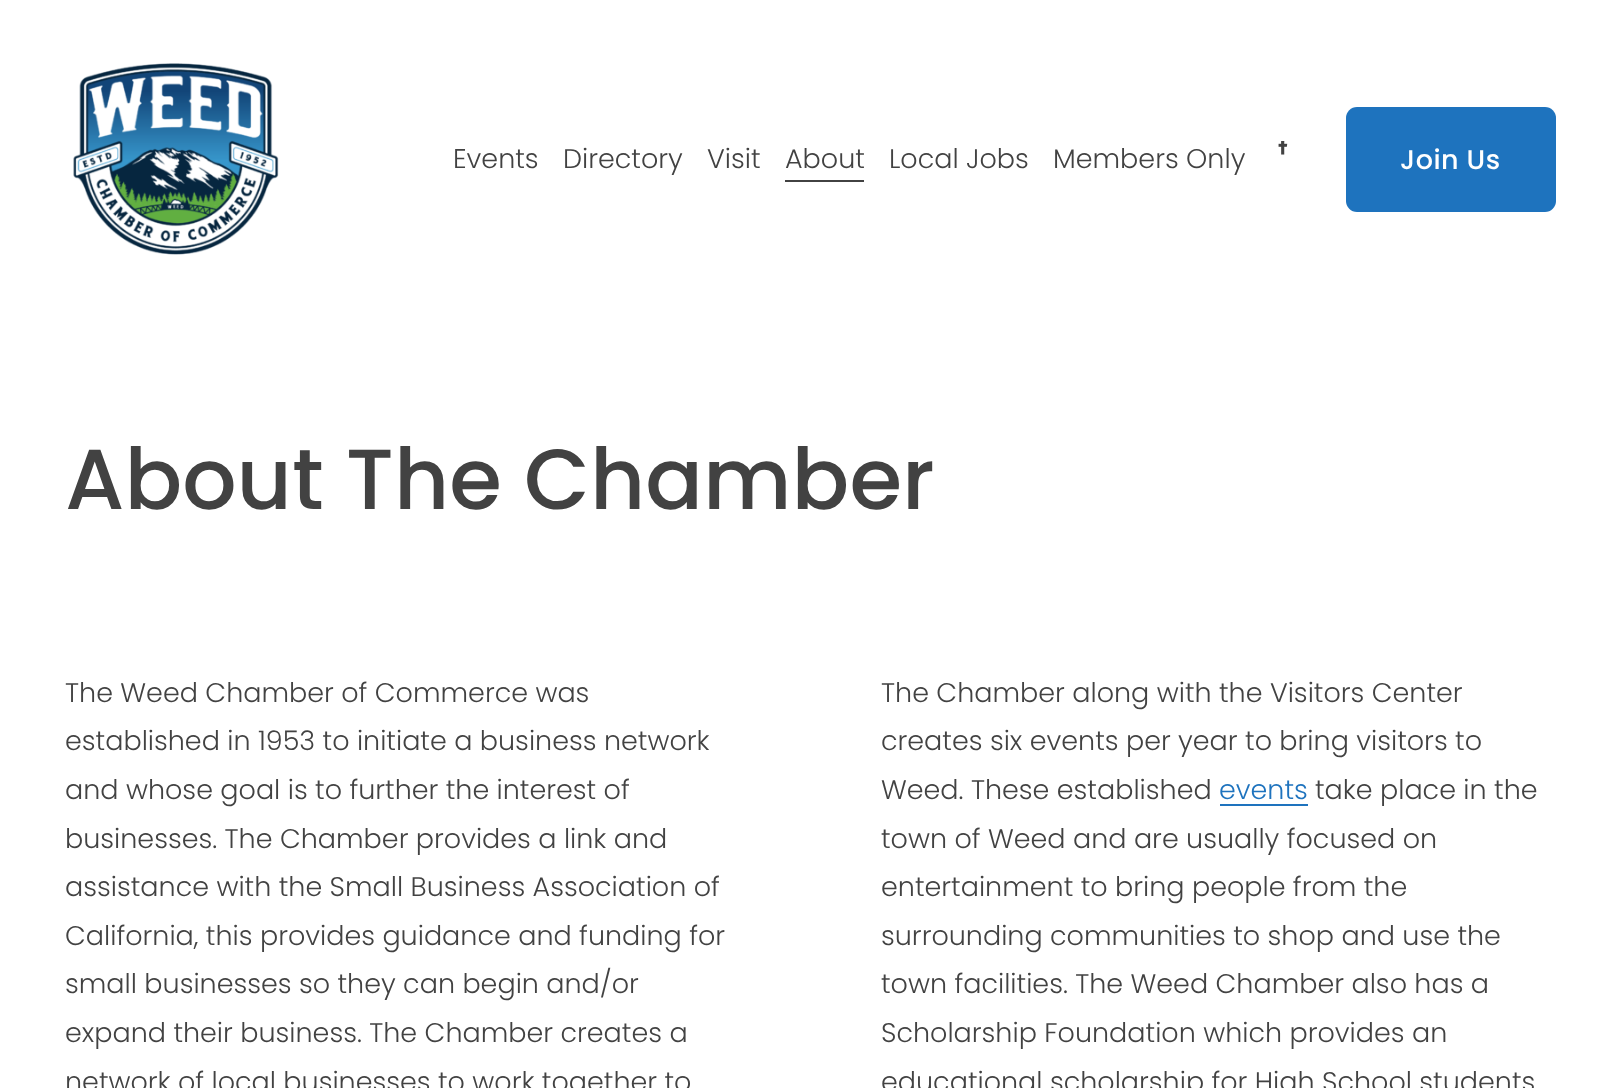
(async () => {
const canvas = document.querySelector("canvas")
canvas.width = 1620
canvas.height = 1088
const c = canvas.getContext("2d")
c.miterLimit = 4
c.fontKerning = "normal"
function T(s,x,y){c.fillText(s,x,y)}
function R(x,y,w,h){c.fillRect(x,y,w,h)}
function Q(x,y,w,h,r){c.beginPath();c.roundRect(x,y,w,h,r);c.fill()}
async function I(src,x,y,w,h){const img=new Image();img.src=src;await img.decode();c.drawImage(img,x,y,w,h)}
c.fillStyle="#fff"
R(0,0,1620,1088)
await I("1.png",73,63,206,192)
c.font="300 27px Poppins"
c.fillStyle="#424242"
T("Events",453,168)
T("Directory",563,168)
T("Visit",707,168)
R(785,180,79,2)
T("About",785,168)
T("Local Jobs",889,168)
T("Members Only",1053,168)
await I("2.png",1278,141,10,14)
c.fillStyle="#1e73be"
Q(1346,107,210,105,11)
c.letterSpacing="0.5px"
c.font="500 27px Poppins"
c.fillStyle="#fff"
T("Join Us",1400,169)
c.letterSpacing="0px"
c.font="500 85.25px Poppins"
c.fillStyle="#424242"
T("About The Chamber",65,509)
c.font="300 27px Poppins"
T("The Weed Chamber of Commerce was",65,702)
T("established in 1953 to initiate a business network",65,750)
T("and whose goal is to further the interest of",65,799)
T("businesses. The Chamber provides a link and",65,848)
T("assistance with the Small Business Association of",65,896)
T("California, this provides guidance and funding for",65,945)
T("small businesses so they can begin and/or",65,993)
T("expand their business. The Chamber creates a",65,1042)
T("network of local businesses to work together to",65,1091)
T("The Chamber along with the Visitors Center",881,702)
T("creates six events per year to bring visitors to",881,750)
T("Weed. These established",881,799)
c.fillStyle="#1e73be"
T("events",1219,799)
R(1220,804,88,2)
c.fillStyle="#424242"
T("take place in the",1315,799)
T("town of Weed and are usually focused on",881,848)
T("entertainment to bring people from the",881,896)
T("surrounding communities to shop and use the",881,945)
T("town facilities. The Weed Chamber also has a",881,993)
T("Scholarship Foundation which provides an",881,1042)
T("educational scholarship for High School students",881,1091)
})()
